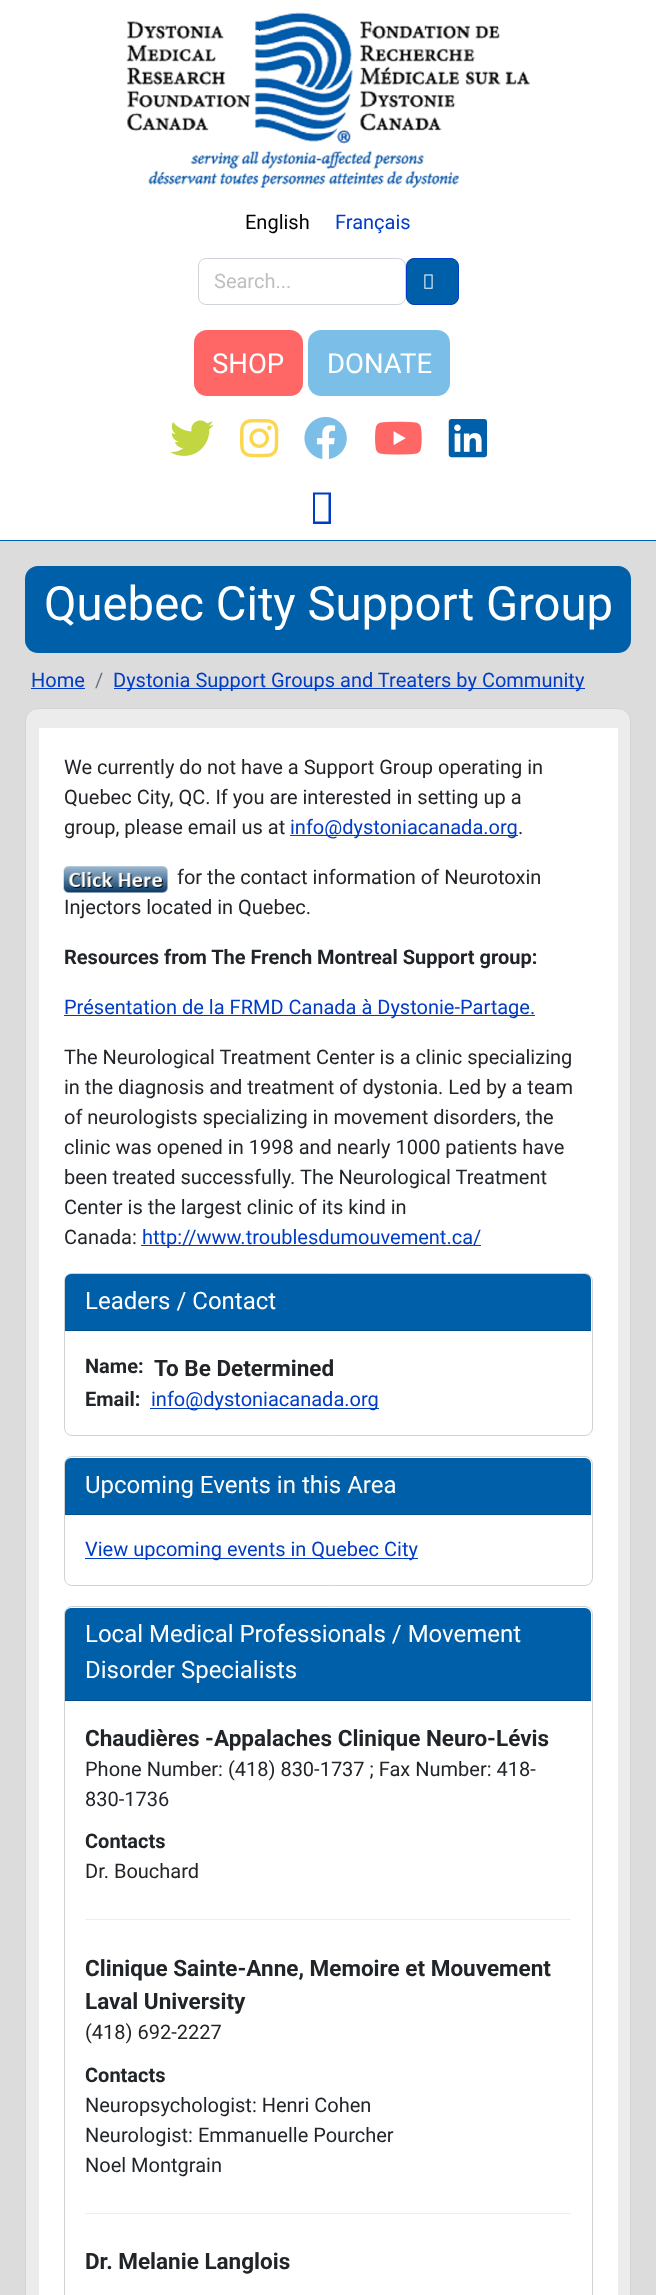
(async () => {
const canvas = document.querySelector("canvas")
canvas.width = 656
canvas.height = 2295
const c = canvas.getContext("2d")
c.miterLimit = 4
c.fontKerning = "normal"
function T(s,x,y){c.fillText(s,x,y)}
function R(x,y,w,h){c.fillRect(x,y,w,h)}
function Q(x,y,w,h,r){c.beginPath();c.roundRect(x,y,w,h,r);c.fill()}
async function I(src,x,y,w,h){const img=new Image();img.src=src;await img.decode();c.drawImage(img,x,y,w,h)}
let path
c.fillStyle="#fff"
R(0,0,656,2295)
await I("1.png",126,12,404,176)
c.font="20px Roboto"
c.fillStyle="#000"
T("English",245,229)
c.fillStyle="#003cc5"
T("Français",335,229)
c.beginPath()
c.roundRect(198.5,258.5,207,46,7.5)
c.strokeStyle="#ced4da"
c.stroke()
c.fillStyle="#c1bebe"
T("Search...",214,288)
c.fillStyle="#005fa9"
c.beginPath()
c.roundRect(406.5,258.5,52,46,7.5)
c.fill()
c.strokeStyle="#003cc5"
c.stroke()
await I("2.png",424,274,9,15)
c.fillStyle="#f66"
Q(194,330,109,66,13)
c.font="27.5px Roboto"
c.fillStyle="#fff"
T("SHOP",212,373)
c.fillStyle="#7bbee7"
Q(308,330,142,66,13)
c.fillStyle="#fff"
T("DONATE",327,373)
c.fillStyle="#dcdcdc"
R(0,541,656,1754)
c.fillStyle="#005fa9"
R(0,540,656,1)
await I("3.png",170,420,44,36)
await I("4.png",240,419,39,39)
await I("5.png",304,416,43,43)
await I("6.png",375,421,47,34)
await I("7.png",448,419,40,39)
c.fillStyle="#003cc5"
path = new Path2D("M313 524v-31.5h18v31.5zm2-2.5h13.5v-27h-13.5z")
c.fill(path)
c.fillStyle="#005fa9"
Q(25,566,606,87,13)
c.font="47.25px Roboto"
c.fillStyle="#fff"
T("Quebec City Support Group",44,620)
c.font="20px Roboto"
c.fillStyle="#003cc5"
T("Home",31,687)
R(31,688,54,1)
c.fillStyle="#6c757d"
T("/",95,687)
c.fillStyle="#003cc5"
R(114,688,471,1)
T("Dystonia Support Groups and Treaters by Community",113,687)
c.fillStyle="#ececec"
c.beginPath()
c.roundRect(25.5,708.5,605,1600,12.5)
c.fill()
c.strokeStyle="#d3d3d3"
c.stroke()
c.fillStyle="#fff"
R(39,728,579,1567)
c.fillStyle="#212529"
T("We currently do not have a Support Group operating in",64,774)
T("Quebec City, QC. If you are interested in setting up a",64,804)
T("group, please email us at",64,834)
c.fillStyle="#003cc5"
R(290,835,228,1)
T("info@dystoniacanada.org",290,834)
c.fillStyle="#212529"
T(".",518,834)
await I("8.png",63,866,105,27)
T("for the contact information of Neurotoxin",177,884)
T("Injectors located in Quebec.",64,914)
c.font="bold 20px Roboto"
T("Resources from The French Montreal Support group:",64,964)
c.fillStyle="#003cc5"
R(64,1015,471,1)
c.font="20px Roboto"
T("Présentation de la FRMD Canada à Dystonie-Partage.",64,1014)
c.fillStyle="#212529"
T("The Neurological Treatment Center is a clinic specializing",64,1064)
T("in the diagnosis and treatment of dystonia. Led by a team",64,1094)
T("of neurologists specializing in movement disorders, the",64,1124)
T("clinic was opened in 1998 and nearly 1000 patients have",64,1154)
T("been treated successfully. The Neurological Treatment",64,1184)
T("Center is the largest clinic of its kind in",64,1214)
T("Canada:",64,1244)
c.fillStyle="#003cc5"
R(141,1245,340,1)
T("http://www.troublesdumouvement.ca/",142,1244)
c.beginPath()
c.roundRect(64.5,1273.5,528,162,7.5)
c.strokeStyle="#d2d2d2"
c.stroke()
c.fillStyle="#005fa9"
c.beginPath()
c.roundRect(65,1274,526,57,[6,6,0,0])
c.fill()
c.fillStyle="#004e8b"
R(65,1330,526,1)
c.font="24px Roboto"
c.fillStyle="#fff"
T("Leaders / Contact",85,1309)
c.font="bold 20px Roboto"
c.fillStyle="#212529"
T("Name:",85,1373)
c.font="bold 22.5px Roboto"
T("To Be Determined",154,1376)
c.font="bold 20px Roboto"
T("Email:",85,1406)
c.fillStyle="#003cc5"
R(150,1408,229,1)
c.font="20px Roboto"
T("info@dystoniacanada.org",151,1406)
c.beginPath()
c.roundRect(64.5,1456.5,528,129,7.5)
c.stroke()
c.fillStyle="#005fa9"
c.beginPath()
c.roundRect(65,1458,526,57,[6,6,0,0])
c.fill()
c.fillStyle="#004e8b"
R(65,1514,526,1)
c.font="24px Roboto"
c.fillStyle="#fff"
T("Upcoming Events in this Area",85,1493)
c.fillStyle="#003cc5"
R(85,1558,333,1)
c.font="20px Roboto"
T("View upcoming events in Quebec City",85,1556)
c.beginPath()
c.roundRect(64.5,1606.5,528,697,7.5)
c.stroke()
c.fillStyle="#005fa9"
c.beginPath()
c.roundRect(65,1608,526,93,[6,6,0,0])
c.fill()
c.fillStyle="#004e8b"
R(65,1700,526,1)
c.font="24px Roboto"
c.fillStyle="#fff"
T("Local Medical Professionals / Movement",85,1642)
T("Disorder Specialists",85,1678)
c.fillStyle="#eee"
R(85,1919,486,1)
c.font="bold 22.5px Roboto"
c.fillStyle="#212529"
T("Chaudières -Appalaches Clinique Neuro-Lévis",85,1746)
c.font="20px Roboto"
T("Phone Number: (418) 830-1737 ; Fax Number: 418-",85,1776)
T("830-1736",85,1806)
c.font="bold 20px Roboto"
T("Contacts",85,1848)
c.font="20px Roboto"
T("Dr. Bouchard",85,1878)
c.fillStyle="#eee"
R(85,2213,486,1)
c.font="bold 22.5px Roboto"
c.fillStyle="#212529"
T("Clinique Sainte-Anne, Memoire et Mouvement",85,1976)
T("Laval University",85,2009)
c.font="20px Roboto"
T("(418) 692-2227",85,2039)
c.font="bold 20px Roboto"
T("Contacts",85,2082)
c.font="20px Roboto"
T("Neuropsychologist: Henri Cohen",85,2112)
T("Neurologist: Emmanuelle Pourcher",85,2142)
T("Noel Montgrain",85,2172)
c.font="bold 22.5px Roboto"
T("Dr. Melanie Langlois",85,2269)
})()
